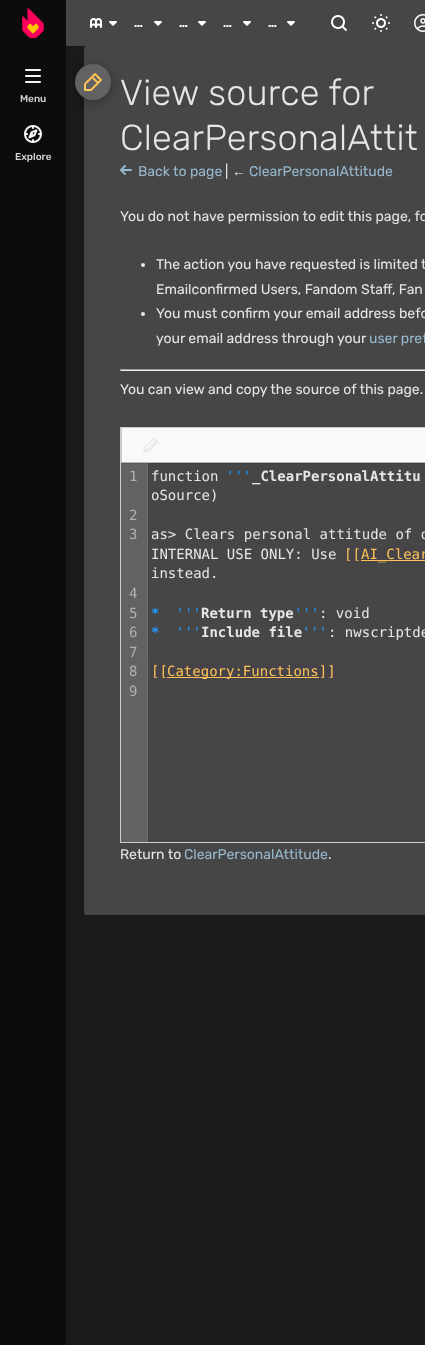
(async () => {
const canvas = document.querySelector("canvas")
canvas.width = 425
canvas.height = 1345
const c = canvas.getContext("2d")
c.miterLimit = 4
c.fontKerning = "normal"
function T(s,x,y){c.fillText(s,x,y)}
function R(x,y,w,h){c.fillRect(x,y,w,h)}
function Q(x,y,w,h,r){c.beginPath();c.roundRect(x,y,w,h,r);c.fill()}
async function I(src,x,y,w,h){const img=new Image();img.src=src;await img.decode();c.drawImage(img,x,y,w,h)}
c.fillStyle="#1a1a1a"
R(0,0,425,1345)
c.fillStyle="#474646"
R(66,0,359,46)
Q(84,46,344,869,3)
c.fillStyle="#0000004d"
c.filter="blur(6px)"
c.beginPath()
c.roundRect(75,67,36,36,18)
c.fill()
c.filter="none"
c.fillStyle="#0c0c0c"
R(0,0,66,1345)
await I("1.png",22,8,22,30)
await I("2.png",90,18,12,10)
await I("3.png",109,21,8,5)
c.font="bold 12px Rubik"
c.fillStyle="#fff"
T("…",134,27)
await I("3.png",154,21,8,5)
T("…",179,27)
await I("3.png",198,21,8,5)
T("…",223,27)
await I("3.png",243,21,8,5)
T("…",268,27)
await I("3.png",287,21,8,5)
await I("4.png",331,15,16,16)
await I("5.png",372,14,18,18)
await I("6.png",414,14,11,18)
await I("7.png",25,69,16,14)
c.font="500 10px Rubik"
c.fillStyle="#d6d0d5"
T("Menu",20,102)
await I("8.png",24,125,18,18)
T("Explore",15,160)
c.fillStyle="#636262"
c.beginPath()
c.arc(93,82,18,0,7)
c.fill()
await I("9.png",84,73,18,18)
c.letterSpacing="0.25px"
c.font="300 36px Rubik"
c.fillStyle="#e6e6e6"
T("View source for",120,105)
T("ClearPersonalAttit",120,150)
await I("10.png",120,165,12,10)
c.letterSpacing="0px"
c.font="14px Rubik"
c.fillStyle="#97b9cf"
T("Back to page",138,176)
c.fillStyle="#e6e6e6"
T("|",225,176)
c.font="14px Liberation Sans"
T("←",232,176)
c.font="14px Rubik"
c.fillStyle="#97b9cf"
T("ClearPersonalAttitude",249,176)
c.fillStyle="#e6e6e6"
T("You do not have permission to edit this page, fo",120,221)
c.beginPath()
c.arc(143,265,2,0,7)
c.fill()
T("The action you have requested is limited t",156,269)
T("Emailconfirmed Users, Fandom Staff, Fan",156,294)
c.beginPath()
c.arc(143,314,2,0,7)
c.fill()
T("You must confirm your email address befo",156,318)
T("your email address through your",156,343)
c.fillStyle="#97b9cf"
T("user pref",369,343)
c.fillStyle="#9f9f9f"
R(120,369,305,1)
c.fillStyle="#eee"
R(120,370,305,1)
c.fillStyle="#9f9f9f"
R(120,369,1,2)
c.fillStyle="#e6e6e6"
T("You can view and copy the source of this page.",120,394)
c.strokeStyle="#ccc"
c.strokeRect(120.5,427.5,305,415)
c.fillStyle="#ccc"
R(121,462,304,1)
c.fillStyle="#636262"
R(121,463,26,379)
c.fillStyle="#6f6e6e"
R(147,463,1,379)
c.fillStyle="#0000001a"
c.filter="blur(0.5px)"
c.beginPath()
c.rect(121,430,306,34)
c.fill()
c.filter="none"
c.fillStyle="#f8f9fa"
R(122,428,303,34)
c.fillStyle="#ccc"
R(121,428,1,34)
await I("11.png",142,438,16,14)
c.font="14px DejaVu Sans Mono"
c.fillStyle="#b2b1b1"
T("1",129,481)
T("2",129,520)
T("3",129,539)
T("4",129,598)
T("5",129,618)
T("6",129,637)
T("7",129,657)
T("8",129,676)
T("9",129,696)
c.fillStyle="#e6e6e6"
T("function",151,481)
c.fillStyle="#2398ff"
T("'''",226,481)
c.font="bold 14px DejaVu Sans Mono"
c.fillStyle="#e6e6e6"
T("_ClearPersonalAttitu",252,481)
c.font="14px DejaVu Sans Mono"
T("oSource)",151,500)
T("as> Clears personal attitude of o",151,539)
T("INTERNAL USE ONLY: Use",151,559)
c.fillStyle="#464449"
R(344,546,81,16)
c.fillStyle="#fec356"
T("[[",344,559)
R(361,560,64,1)
T("AI_Clear",361,559)
c.fillStyle="#e6e6e6"
T("instead.",151,578)
c.font="bold 14px DejaVu Sans Mono"
c.fillStyle="#2398ff"
T("*",151,618)
c.font="14px DejaVu Sans Mono"
T("'''",176,618)
c.font="bold 14px DejaVu Sans Mono"
c.fillStyle="#e6e6e6"
T("Return type",201,618)
c.font="14px DejaVu Sans Mono"
c.fillStyle="#2398ff"
T("'''",294,618)
c.fillStyle="#e6e6e6"
T(": void",319,618)
c.font="bold 14px DejaVu Sans Mono"
c.fillStyle="#2398ff"
T("*",151,637)
c.font="14px DejaVu Sans Mono"
T("'''",176,637)
c.font="bold 14px DejaVu Sans Mono"
c.fillStyle="#e6e6e6"
T("Include file",201,637)
c.font="14px DejaVu Sans Mono"
c.fillStyle="#2398ff"
T("'''",302,637)
c.fillStyle="#e6e6e6"
T(": nwscriptde",328,637)
c.fillStyle="#464449"
R(151,663,185,16)
c.fillStyle="#fec356"
T("[[",151,676)
R(167,677,152,1)
T("Category:Functions]]",167,676)
c.font="14px Rubik"
c.fillStyle="#e6e6e6"
T("Return to",120,859)
c.fillStyle="#97b9cf"
T("ClearPersonalAttitude",184,859)
c.fillStyle="#e6e6e6"
T(".",328,859)
})()
